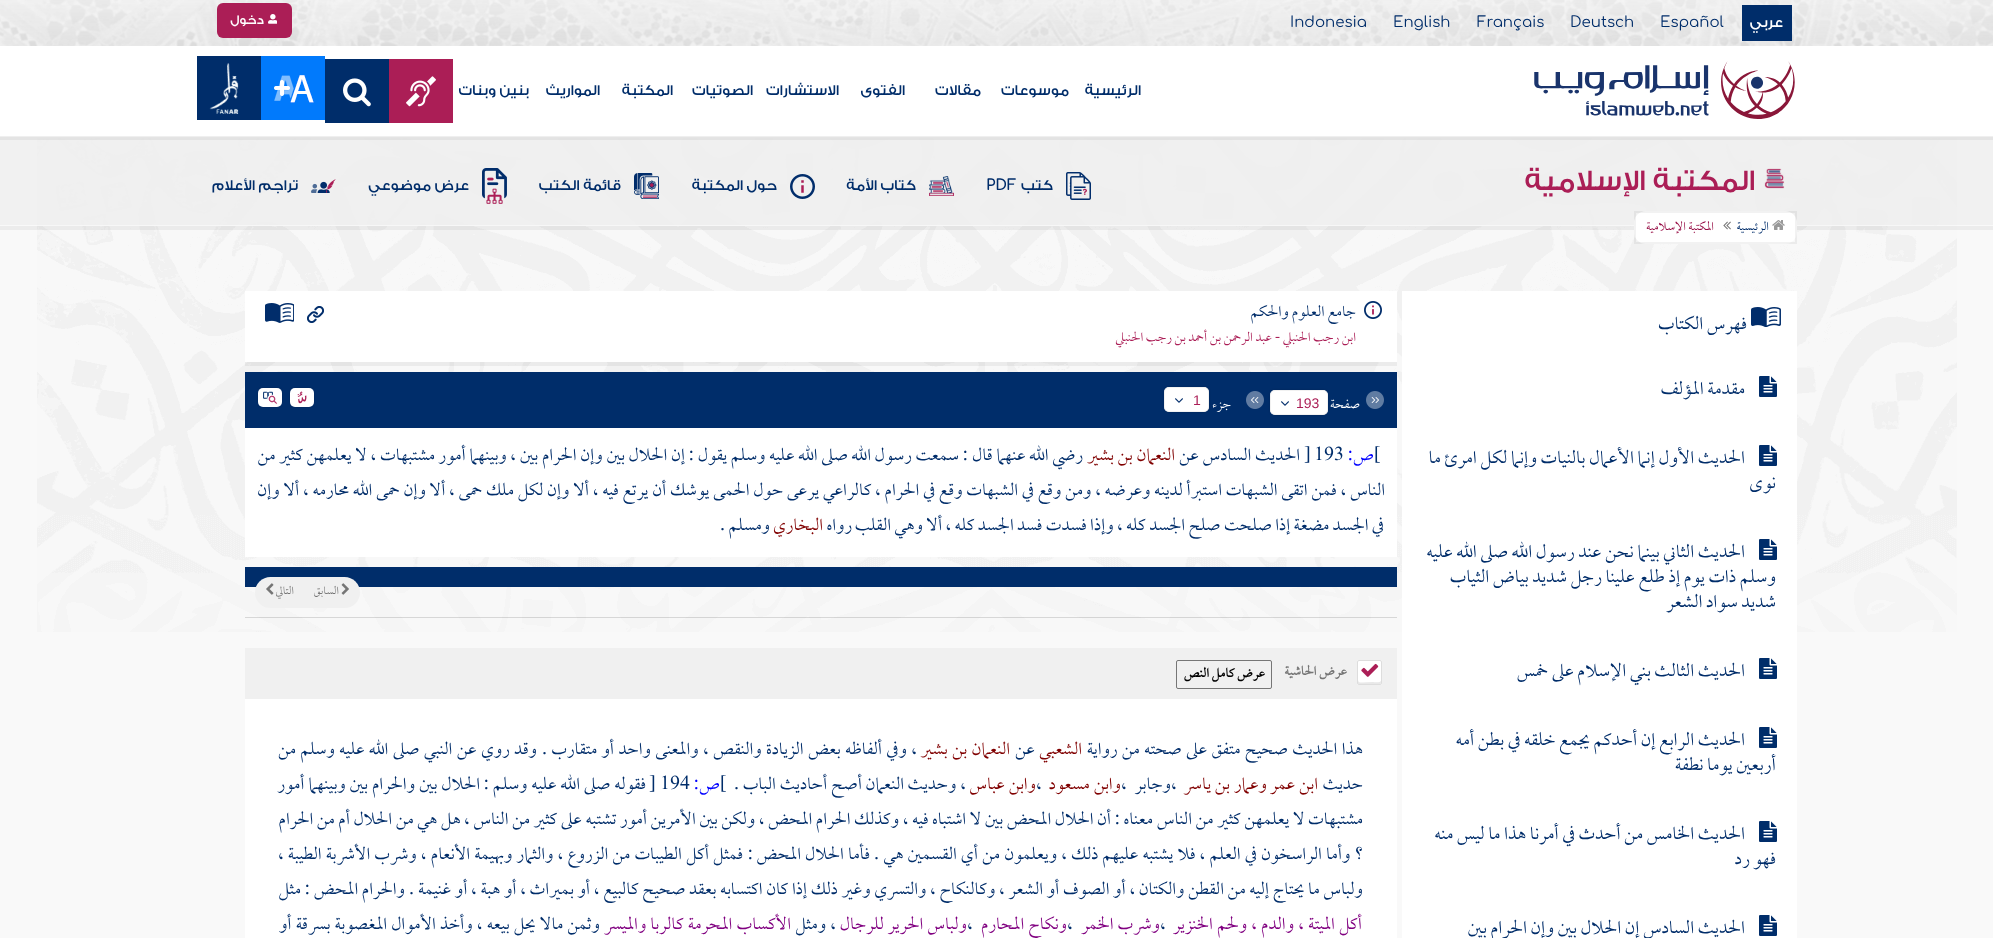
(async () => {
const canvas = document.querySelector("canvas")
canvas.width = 1993
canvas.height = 938
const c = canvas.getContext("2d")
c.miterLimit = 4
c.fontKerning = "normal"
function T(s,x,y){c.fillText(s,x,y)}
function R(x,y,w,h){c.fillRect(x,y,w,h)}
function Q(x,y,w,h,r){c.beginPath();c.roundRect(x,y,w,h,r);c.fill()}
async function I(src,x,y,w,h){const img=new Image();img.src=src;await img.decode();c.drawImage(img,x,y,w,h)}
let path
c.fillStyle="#f9f9f9"
R(0,0,1993,938)
c.fillStyle="#f0f0f0"
R(0,0,1993,46)
await I("1.png",0,0,1993,46)
c.fillStyle="#002d6a"
R(1742,5,50,36)
c.direction="rtl"
c.font="500 15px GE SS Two"
c.fillStyle="#fff"
T("عربي",1783,27)
c.direction="ltr"
c.font="15px Comfortaa"
c.fillStyle="#002d6a"
T("Español",1660,27)
T("Deutsch",1570,27)
T("Français",1477,27)
T("English",1393,27)
T("Indonesia",1290,27)
c.fillStyle="#ab1e56"
Q(217,3,75,35,6)
await I("2.png",268,14,9,10)
c.direction="rtl"
c.font="500 13px GE SS Two"
c.fillStyle="#fff"
T("دخول",264,24)
await I("8.png",37,138,1920,494)
c.fillStyle="#fcfcfc"
R(0,136,1993,1)
c.fillStyle="#eeeeeebf"
R(0,137,1993,88)
c.fillStyle="#0000000d"
R(0,136,1993,4)
c.fillStyle="#fff"
R(0,46,1993,90)
await I("3.png",1534,61,261,58)
c.font="500 15px GE SS Two"
c.fillStyle="#002d6a"
T("الرئيسية",1141,95)
T("موسوعات",1069,95)
T("مقالات",981,95)
T("الفتوى",905,95)
T("الاستشارات",839,95)
T("الصوتيات",753,95)
T("المكتبة",673,95)
T("المواريث",600,95)
T("بنين وبنات",529,95)
c.fillStyle="#ab1e56"
R(389,59,64,64)
await I("4.png",406,76,30,31)
c.fillStyle="#002d6a"
R(325,59,64,64)
await I("5.png",343,78,28,29)
await I("6.png",261,56,64,64)
await I("7.png",197,56,64,64)
c.fillStyle="#0000000d"
R(0,226,1993,4)
c.fillStyle="#f7f7f7"
R(37,225,1897,1)
await I("9.png",1764,168,21,21)
c.font="500 30px GE SS Two"
c.fillStyle="#ab1e56"
T("المكتبة الإسلامية",1755,190)
await I("10.png",1066,172,25,28)
c.font="500 15px GE SS Two"
c.fillStyle="#002d6a"
T("كتب",1053,190)
c.direction="ltr"
c.font="bold 15px Comfortaa"
T("PDF",986,190)
await I("11.png",929,176,25,20)
c.direction="rtl"
c.font="500 15px GE SS Two"
T("كتاب الأمة",916,190)
await I("12.png",790,174,25,25)
T("حول المكتبة",777,190)
await I("13.png",634,173,25,26)
T("قائمة الكتب",621,190)
await I("14.png",482,168,25,36)
T("عرض موضوعي",469,190)
await I("15.png",311,179,25,14)
T("تراجم الأعلام",298,190)
c.fillStyle="#fff"
Q(1634,211,163,33,12)
c.strokeStyle="#0000000d"
c.lineWidth=2
c.strokeRect(1635,212,161,31)
await I("16.png",1772,220,13,10)
c.font="300 14px 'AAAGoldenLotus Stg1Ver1'"
c.fillStyle="#002d6a"
T("الرئيسية",1769,230)
await I("17.png",1723,221,8,9)
c.fillStyle="#970c44"
T("المكتبة الإسلامية",1714,230)
c.fillStyle="#fff"
R(1402,291,395,647)
await I("18.png",1751,307,30,20)
c.font="300 21px 'AAAGoldenLotus Stg1Ver1'"
c.fillStyle="#002d6a"
T("فهرس الكتاب",1747,329)
await I("19.png",1759,376,18,21)
T("مقدمة المؤلف",1745,394)
await I("19.png",1759,445,18,21)
T("الحديث الأول إنما الأعمال بالنيات وإنما لكل امرئ ما",1745,463)
T("نوى",1776,488)
await I("19.png",1759,539,18,21)
T("الحديث الثاني بينما نحن عند رسول الله صلى الله عليه",1745,557)
T("وسلم ذات يوم إذ طلع علينا رجل شديد بياض الثياب",1776,582)
T("شديد سواد الشعر",1776,607)
await I("19.png",1759,658,18,21)
T("الحديث الثالث بني الإسلام على خمس",1745,676)
await I("19.png",1759,727,18,21)
T("الحديث الرابع إن أحدكم يجمع خلقه في بطن أمه",1745,745)
T("أربعين يوما نطفة",1776,770)
await I("19.png",1759,821,18,21)
T("الحديث الخامس من أحدث في أمرنا هذا ما ليس منه",1745,839)
T("فهو رد",1776,864)
await I("19.png",1759,915,18,21)
T("الحديث السادس إن الحلال بين وإن الحرام بين",1745,933)
c.fillStyle="#0000000d"
R(245,362,1152,4)
c.fillStyle="#fff"
R(245,291,1152,71)
await I("20.png",1364,301,18,18)
c.font="300 17.5px 'AAAGoldenLotus Stg1Ver1'"
c.fillStyle="#002d6a"
T("جامع العلوم والحكم",1356,316)
c.font="300 15px 'AAAGoldenLotus Stg1Ver1'"
c.fillStyle="#ab1e56"
T("ابن رجب الحنبلي",1356,341)
c.font="15px Liberation Serif"
T("-",1280,341)
c.font="300 15px 'AAAGoldenLotus Stg1Ver1'"
T("عبد الرحمن بن أحمد بن رجب الحنبلي",1272,341)
await I("21.png",307,306,17,17)
await I("22.png",265,303,29,20)
c.fillStyle="#002d6a"
R(245,372,1152,56)
await I("23.png",1366,391,18,18)
c.fillStyle="#fff"
T("صفحة",1360,408)
c.fillStyle="#00000029"
c.filter="blur(1px)"
c.beginPath()
c.roundRect(1270,390,58,25,5)
c.fill()
c.filter="none"
c.fillStyle="#fff"
Q(1270,390,58,25,5)
c.beginPath()
c.roundRect(1270.5,390.5,57,24,4.5)
c.strokeStyle="#eaeaeab0"
c.lineWidth=1
c.stroke()
c.direction="ltr"
c.font="14px Liberation Sans"
c.fillStyle="#ab1e56"
T("193",1296,408)
await I("24.png",1281,401,8,5)
await I("25.png",1246,391,18,18)
c.fillStyle="#00000029"
c.filter="blur(1px)"
c.beginPath()
c.roundRect(1164,387,45,25,5)
c.fill()
c.filter="none"
c.fillStyle="#fff"
Q(1164,387,45,25,5)
c.beginPath()
c.roundRect(1164.5,387.5,44,24,4.5)
c.stroke()
c.fillStyle="#ab1e56"
T("1",1193,405)
await I("24.png",1175,398,8,5)
c.direction="rtl"
c.font="300 15px 'AAAGoldenLotus Stg1Ver1'"
c.fillStyle="#fff"
T("جزء",1231,408)
await I("26.png",289,387,26,21)
await I("27.png",257,387,26,21)
R(245,428,1152,129)
c.direction="ltr"
c.font="20px Liberation Serif"
c.fillStyle="#002d6a"
T("[",1374,460)
c.direction="rtl"
c.font="300 20px 'AAAGoldenLotus Stg1Ver1'"
c.fillStyle="#00f"
T("ص",1374,460)
c.font="20px Liberation Serif"
T(":",1353,460)
c.direction="ltr"
c.font="300 20px 'AAAGoldenLotus Stg1Ver1'"
c.fillStyle="#002d6a"
T("193",1314,460)
c.font="20px Liberation Serif"
T("]",1304,460)
c.wordSpacing="0.3px"
c.direction="rtl"
c.font="300 20px 'AAAGoldenLotus Stg1Ver1'"
T("الحديث السادس عن",1300,460)
c.fillStyle="#800000"
T("النعمان بن بشير",1175,460)
c.fillStyle="#002d6a"
T("رضي الله عنهما قال",1083,460)
c.wordSpacing="0px"
c.font="20px Liberation Serif"
T(":",968,460)
c.wordSpacing="0.3px"
c.font="300 20px 'AAAGoldenLotus Stg1Ver1'"
T("سمعت رسول الله صلى الله عليه وسلم يقول",959,460)
c.wordSpacing="0px"
c.font="20px Liberation Serif"
T(":",694,460)
c.wordSpacing="0.3px"
c.font="300 20px 'AAAGoldenLotus Stg1Ver1'"
T("إن الحلال بين وإن الحرام بين ، وبينهما أمور مشتبهات ، لا يعلمهن كثير من",685,460)
c.wordSpacing="0.35px"
T("الناس ، فمن اتقى الشبهات استبرأ لدينه وعرضه ، ومن وقع في الشبهات وقع في الحرام ، كالراعي يرعى حول الحمى يوشك أن يرتع فيه ، ألا وإن لكل ملك حمى ، ألا وإن حمى الله محارمه ، ألا وإن",1385,495)
c.wordSpacing="0px"
T("في الجسد مضغة إذا صلحت صلح الجسد كله ، وإذا فسدت فسد الجسد كله ، ألا وهي القلب",1384,530)
T("رواه",852,530)
c.fillStyle="#800000"
T("البخاري",823,530)
c.fillStyle="#002d6a"
T("ومسلم",770,530)
c.direction="ltr"
c.font="20px Liberation Serif"
T(".",720,530)
R(245,567,1152,20)
c.fillStyle="#f0f0f0"
c.beginPath()
c.roundRect(304,577,56,31,[0,15.5,15.5,0])
c.fill()
await I("28.png",341,583,8,12)
c.direction="rtl"
c.font="300 13px 'AAAGoldenLotus Stg1Ver1'"
c.fillStyle="#757575"
T("السابق",339,594)
c.fillStyle="#f0f0f0"
c.beginPath()
c.roundRect(255,577,49,31,[15.5,0,0,15.5])
c.fill()
c.fillStyle="#757575"
T("التالي",294,594)
await I("29.png",266,583,8,12)
c.fillStyle="#75757540"
R(245,617,1152,1)
c.fillStyle="#f0f0f0"
R(245,648,1152,51)
c.fillStyle="#fff"
R(245,699,1152,239)
Q(1357,660,25,25,2)
c.fillStyle="#e8e8e8"
path = new Path2D("M1358 679c0 5.5-1 5 4.5 5h14c4 0 4.5 1 4.5-3c-1 2-7 1-8.5 1l-10.5 .5c-3 0-4-.5-4-3.5z")
c.fill(path)
c.beginPath()
c.roundRect(1357.5,660.5,24,24,1.5)
c.strokeStyle="#ddd"
c.stroke()
await I("30.png",1361,663,18,14)
c.font="bold 15px 'AAAGoldenLotus Stg1Ver1'"
c.fillStyle="#757575"
T("عرض الحاشية",1347,675)
c.beginPath()
c.roundRect(1176.5,660.5,95,28,1.5)
c.strokeStyle="#767676"
c.stroke()
c.fillStyle="#000"
T("عرض كامل النص",1265,677)
c.wordSpacing="1px"
c.font="300 20px 'AAAGoldenLotus Stg1Ver1'"
c.fillStyle="#002d6a"
T("هذا الحديث صحيح متفق على صحته من رواية",1363,754)
c.wordSpacing="0px"
c.fillStyle="#800000"
T("الشعبي",1082,754)
c.fillStyle="#002d6a"
T("عن",1035,754)
c.wordSpacing="1px"
c.fillStyle="#800000"
T("النعمان بن بشير",1010,754)
c.fillStyle="#002d6a"
T("، وفي ألفاظه بعض الزيادة والنقص ، والمعنى واحد أو متقارب",917,754)
c.wordSpacing="0px"
c.font="20px Liberation Serif"
T(".",547,754)
c.wordSpacing="1px"
c.font="300 20px 'AAAGoldenLotus Stg1Ver1'"
T("وقد روي عن النبي صلى الله عليه وسلم من",537,754)
c.wordSpacing="0px"
T("حديث",1363,789)
c.wordSpacing="0.5px"
c.fillStyle="#800000"
T("ابن عمر",1318,789)
T("وعمار بن ياسر",1267,789)
c.wordSpacing="0px"
c.direction="ltr"
c.fillStyle="#002d6a"
T("،",1171,789)
c.direction="rtl"
T("وجابر",1171,789)
c.direction="ltr"
T("،",1121,789)
c.wordSpacing="0.5px"
c.direction="rtl"
c.fillStyle="#800000"
T("وابن مسعود",1121,789)
c.wordSpacing="0px"
c.direction="ltr"
c.fillStyle="#002d6a"
T("،",1036,789)
c.wordSpacing="0.3px"
c.direction="rtl"
c.fillStyle="#800000"
T("وابن عباس",1036,789)
c.wordSpacing="0.5px"
c.fillStyle="#002d6a"
T("، وحديث",966,789)
c.wordSpacing="0px"
T("النعمان",904,789)
c.wordSpacing="0.5px"
T("أصح أحاديث الباب",862,789)
c.wordSpacing="0px"
c.font="20px Liberation Serif"
T(".",739,789)
c.direction="ltr"
T("[",720,789)
c.direction="rtl"
c.font="300 20px 'AAAGoldenLotus Stg1Ver1'"
c.fillStyle="#00f"
T("ص",720,789)
c.font="20px Liberation Serif"
T(":",699,789)
c.direction="ltr"
c.font="300 20px 'AAAGoldenLotus Stg1Ver1'"
c.fillStyle="#002d6a"
T("194",660,789)
c.font="20px Liberation Serif"
T("]",649,789)
c.wordSpacing="0.5px"
c.direction="rtl"
c.font="300 20px 'AAAGoldenLotus Stg1Ver1'"
T("فقوله صلى الله عليه وسلم",646,789)
c.wordSpacing="0px"
c.font="20px Liberation Serif"
T(":",489,789)
c.wordSpacing="0.5px"
c.font="300 20px 'AAAGoldenLotus Stg1Ver1'"
T("الحلال بين والحرام بين وبينهما أمور",480,789)
c.wordSpacing="0.15px"
T("مشتبهات لا يعلمهن كثير من الناس",1363,824)
c.wordSpacing="0px"
T("معناه",1153,824)
c.font="20px Liberation Serif"
T(":",1120,824)
c.wordSpacing="0.15px"
c.font="300 20px 'AAAGoldenLotus Stg1Ver1'"
T("أن الحلال المحض بين لا اشتباه فيه ، وكذلك الحرام المحض ، ولكن بين الأمرين أمور تشتبه على كثير من الناس ، هل هي من الحلال أم من الحرام",1111,824)
c.wordSpacing="0.75px"
T("؟ وأما الراسخون في العلم ، فلا يشتبه عليهم ذلك ، ويعلمون من أي القسمين هي",1363,859)
c.wordSpacing="0px"
c.font="20px Liberation Serif"
T(".",879,859)
c.wordSpacing="0.75px"
c.font="300 20px 'AAAGoldenLotus Stg1Ver1'"
T("فأما الحلال المحض",870,859)
c.wordSpacing="0px"
c.font="20px Liberation Serif"
T(":",753,859)
c.wordSpacing="0.75px"
c.font="300 20px 'AAAGoldenLotus Stg1Ver1'"
T("فمثل أكل الطيبات من الزروع ، والثمار وبهيمة الأنعام ، وشرب الأشربة الطيبة ،",743,859)
c.wordSpacing="0.3px"
T("ولباس ما يحتاج إليه من القطن والكتان ، أو الصوف أو الشعر ، وكالنكاح ، والتسري وغير ذلك إذا كان اكتسابه بعقد صحيح كالبيع ، أو بميراث ، أو هبة ، أو غنيمة",1363,894)
c.wordSpacing="0px"
c.font="20px Liberation Serif"
T(".",414,894)
c.wordSpacing="0.3px"
c.font="300 20px 'AAAGoldenLotus Stg1Ver1'"
T("والحرام المحض",405,894)
c.wordSpacing="0px"
c.font="20px Liberation Serif"
T(":",310,894)
c.font="300 20px 'AAAGoldenLotus Stg1Ver1'"
T("مثل",301,894)
c.wordSpacing="0.75px"
c.fillStyle="#800080"
T("أكل الميتة ، والدم ، ولحم الخنزير",1362,929)
c.wordSpacing="0px"
c.direction="ltr"
c.fillStyle="#002d6a"
T("،",1160,929)
c.wordSpacing="0.75px"
c.direction="rtl"
c.fillStyle="#800080"
T("وشرب الخمر",1160,929)
c.wordSpacing="0px"
c.direction="ltr"
c.fillStyle="#002d6a"
T("،",1067,929)
c.wordSpacing="0.75px"
c.direction="rtl"
c.fillStyle="#800080"
T("ونكاح المحارم",1067,929)
c.wordSpacing="0px"
c.direction="ltr"
c.fillStyle="#002d6a"
T("،",967,929)
c.wordSpacing="0.75px"
c.direction="rtl"
c.fillStyle="#800080"
T("ولباس الحرير للرجال",967,929)
c.fillStyle="#002d6a"
T("، ومثل",836,929)
c.fillStyle="#800080"
T("الأكساب المحرمة كالربا والميسر",791,929)
c.fillStyle="#002d6a"
T("وثمن مالا يحل بيعه ، وأخذ الأموال المغصوبة بسرقة أو",600,929)
})()
